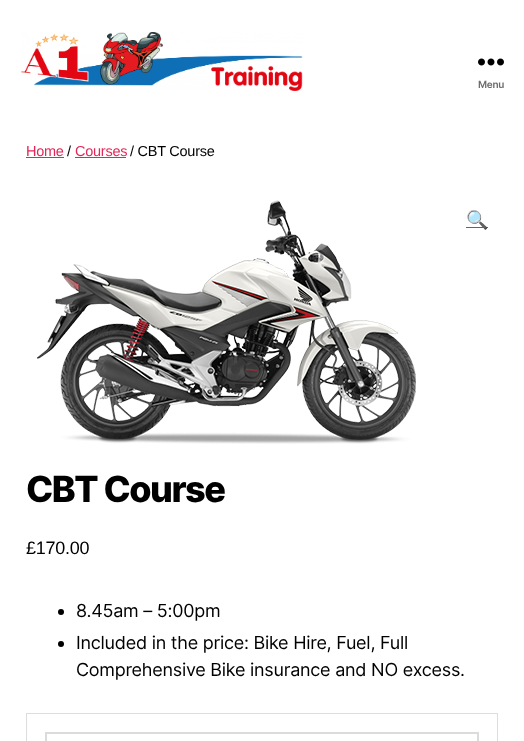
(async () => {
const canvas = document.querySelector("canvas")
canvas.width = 524
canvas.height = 741
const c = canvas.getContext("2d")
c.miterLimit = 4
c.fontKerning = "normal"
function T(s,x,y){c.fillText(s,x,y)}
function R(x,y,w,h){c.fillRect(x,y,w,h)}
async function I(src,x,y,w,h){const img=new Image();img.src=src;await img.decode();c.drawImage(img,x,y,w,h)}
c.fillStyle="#fff"
R(0,0,524,741)
await I("1.png",20,32,283,59)
await I("2.png",478,58,26,8)
c.letterSpacing="-0.25px"
c.font="600 10px Inter"
c.fillStyle="#6d6d6d"
T("Menu",478,88)
c.font="14.5px Liberation Sans"
c.fillStyle="#e22658"
T("Home",26,156)
R(26,157,38,1)
c.fillStyle="#000"
T("/",67,156)
c.fillStyle="#e22658"
T("Courses",75,156)
R(75,157,51,1)
c.fillStyle="#000"
T("/ CBT Course",130,156)
await I("3.png",37,200,379,244)
c.fillStyle="#e22658"
R(466,227,22,1)
c.font="18px Noto Color Emoji"
T("🔍",466,226)
c.letterSpacing="-1.5px"
c.font="800 36px Inter"
c.fillStyle="#000"
T("CBT Course",26,502)
c.letterSpacing="-0.25px"
c.font="18px Liberation Sans"
T("£170.00",26,554)
c.beginPath()
c.arc(61,612,3,0,7)
c.fill()
c.font="18px Inter"
T("8.45am – 5:00pm",76,617)
c.beginPath()
c.arc(61,644,3,0,7)
c.fill()
T("Included in the price: Bike Hire, Fuel, Full",76,649)
T("Comprehensive Bike insurance and NO excess.",76,676)
c.strokeStyle="#ddd"
c.strokeRect(26.5,713.5,471,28)
c.strokeStyle="#dbdbdb"
c.lineWidth=2
c.strokeRect(46,733,432,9)
})()
